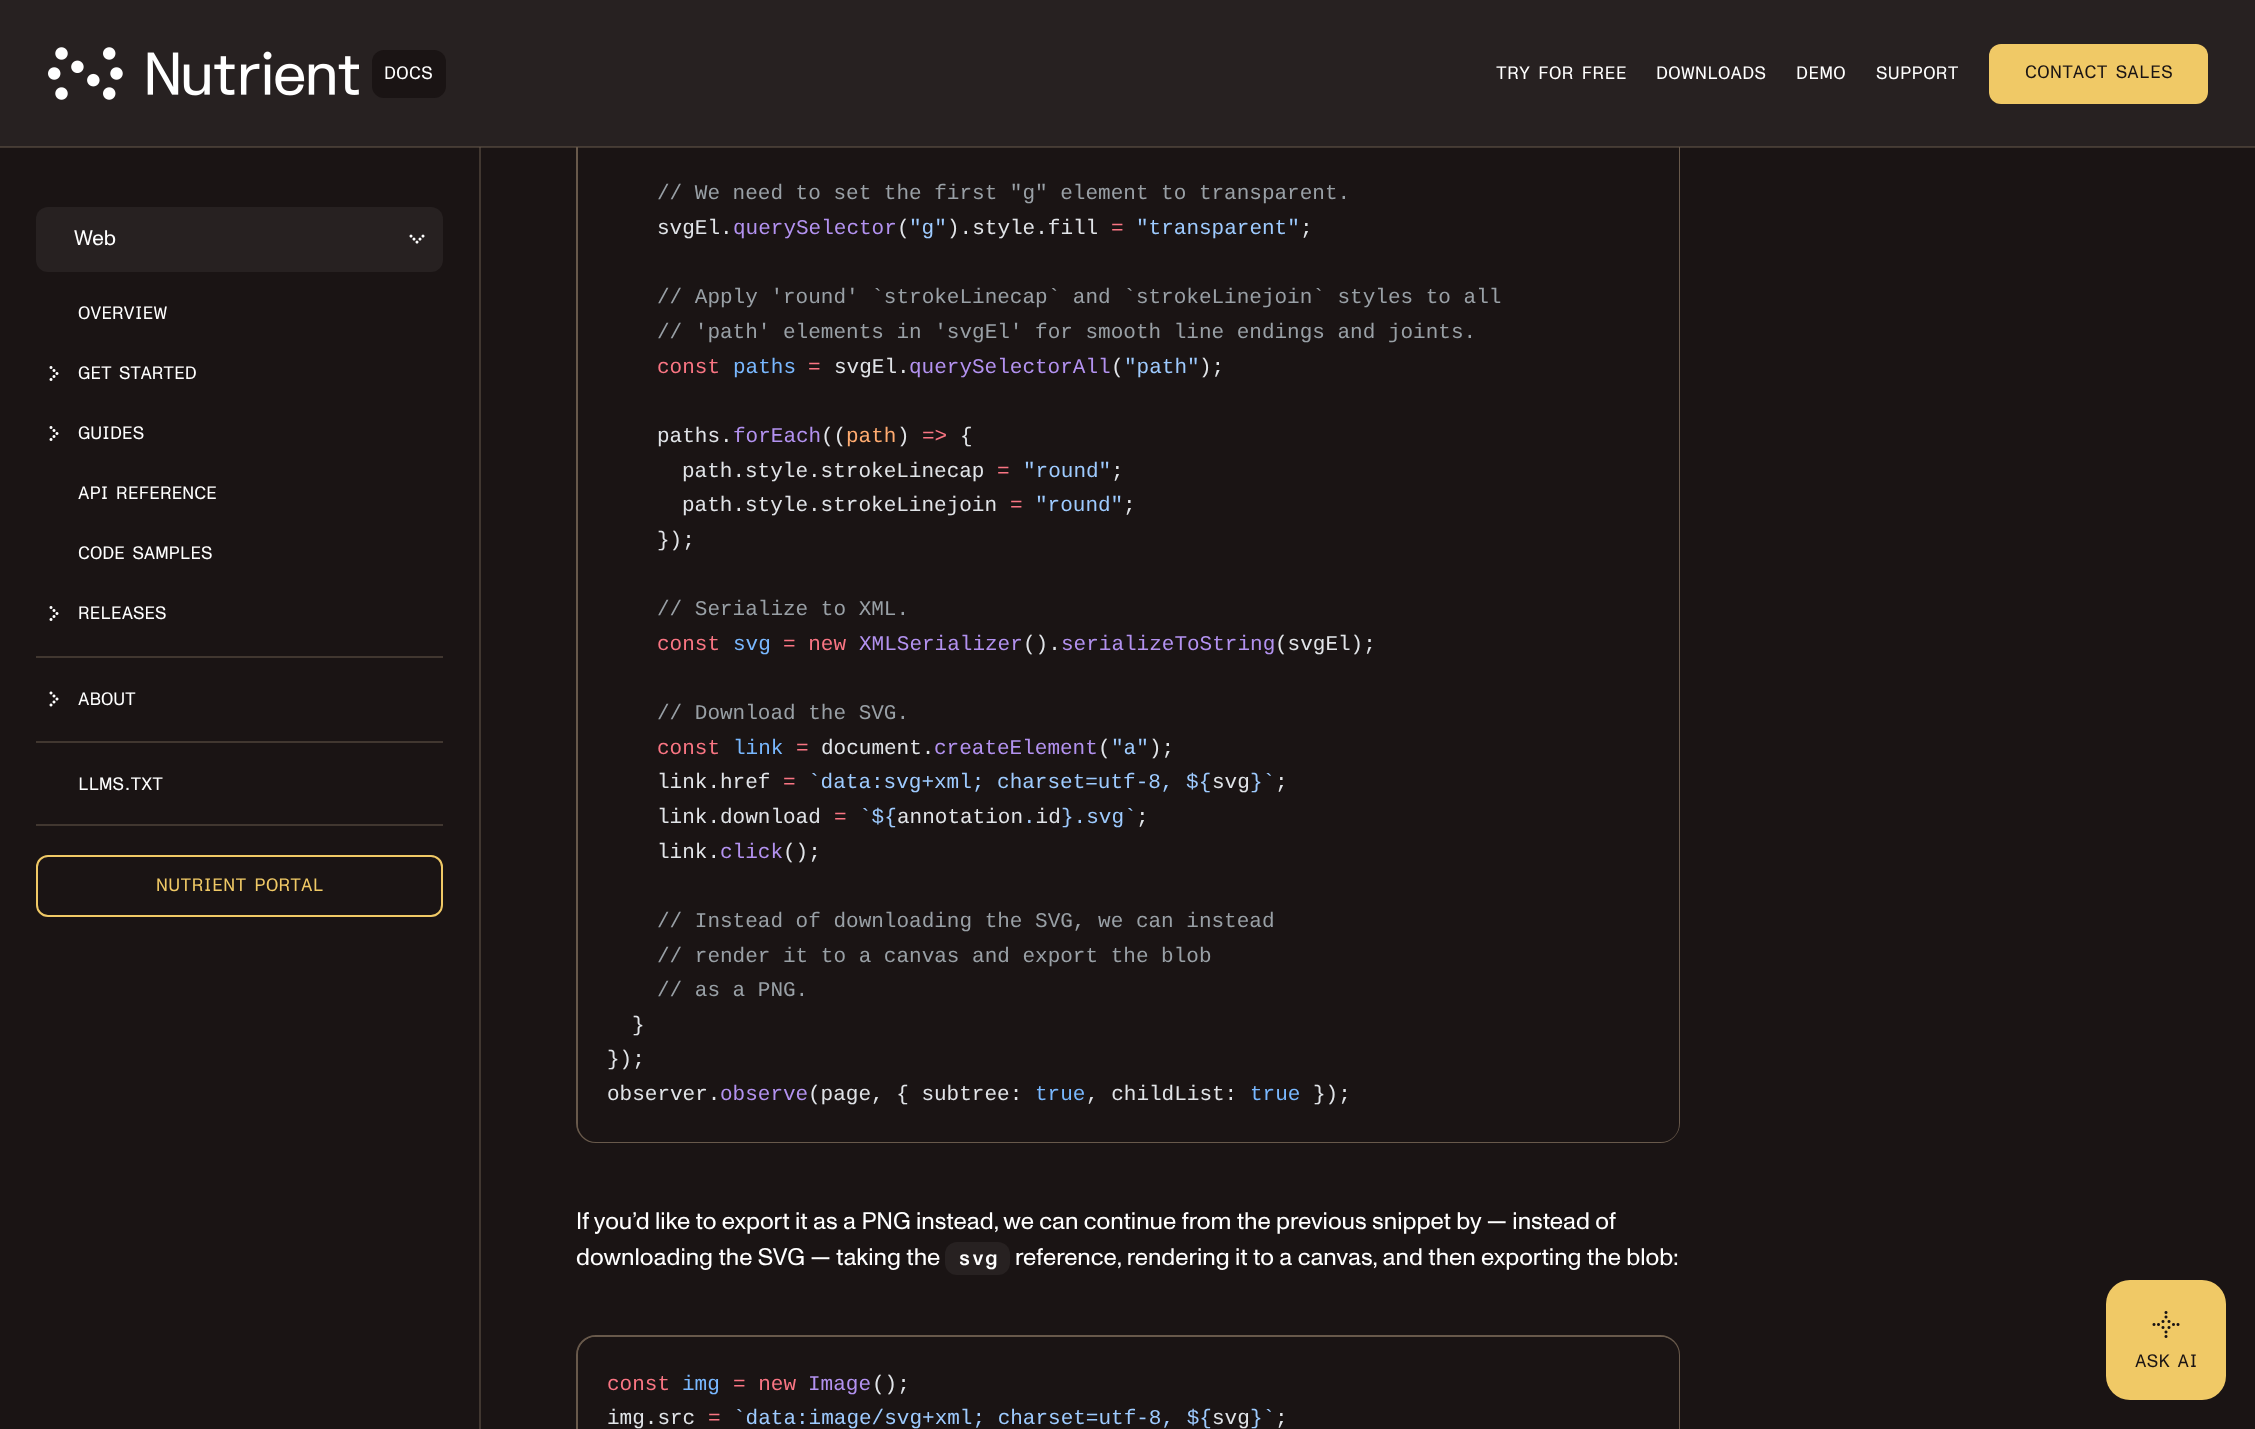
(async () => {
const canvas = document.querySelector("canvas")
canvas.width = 2255
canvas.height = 1429
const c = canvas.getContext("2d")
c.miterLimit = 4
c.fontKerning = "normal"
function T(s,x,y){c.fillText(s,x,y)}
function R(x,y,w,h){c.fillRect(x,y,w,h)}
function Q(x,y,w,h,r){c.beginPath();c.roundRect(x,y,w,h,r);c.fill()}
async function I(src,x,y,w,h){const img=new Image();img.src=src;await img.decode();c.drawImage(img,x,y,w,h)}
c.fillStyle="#1a1414"
R(0,0,2255,1429)
c.beginPath()
c.roundRect(577,-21,1102,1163,19)
c.strokeStyle="#68594b"
c.lineWidth=2
c.stroke()
Q(578,-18,1101,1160,18)
c.fillStyle="#272121"
R(0,0,2255,147)
c.fillStyle="#413730"
R(479,147,2,1282)
c.fillStyle="#68594b80"
R(0,146,2255,2)
await I("1.png",48,47,311,53)
c.fillStyle="#1a1414"
Q(372,50,74,48,12)
c.letterSpacing="0.4px"
c.font="18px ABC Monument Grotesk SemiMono"
c.fillStyle="#fff"
T("DOCS",384,79)
T("TRY FOR FREE",1496,79)
T("DOWNLOADS",1656,79)
T("DEMO",1796,79)
T("SUPPORT",1876,79)
c.fillStyle="#f0c966"
Q(1989,44,219,60,12)
c.fillStyle="#1a1414"
T("CONTACT SALES",2025,78)
c.fillStyle="#272121"
Q(36,207,407,65,12)
c.letterSpacing="0px"
c.font="21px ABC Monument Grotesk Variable"
c.fillStyle="#fff"
T("Web",74,245)
await I("2.png",409,234,16,10)
c.font="18px ABC Monument Grotesk SemiMono"
T("OVERVIEW",78,319)
await I("3.png",49,366,10,15)
T("GET STARTED",78,379)
await I("3.png",49,426,10,15)
T("GUIDES",78,439)
T("API REFERENCE",78,499)
T("CODE SAMPLES",78,559)
await I("3.png",49,606,10,15)
T("RELEASES",78,619)
c.fillStyle="#413730"
R(36,656,407,2)
await I("4.png",49,691,10,16)
c.fillStyle="#fff"
T("ABOUT",78,705)
c.fillStyle="#413730"
R(36,741,407,2)
c.fillStyle="#fff"
T("LLMS.TXT",78,790)
c.fillStyle="#413730"
R(36,824,407,2)
c.beginPath()
c.roundRect(37,856,405,60,11)
c.strokeStyle="#f0c966"
c.stroke()
c.letterSpacing="0.4px"
c.fillStyle="#f0c966"
T("NUTRIENT PORTAL",156,891)
c.letterSpacing="0px"
c.font="21px Liberation Mono"
c.fillStyle="#99a0a6"
T("// We need to set the first \"g\" element to transparent.",657,199)
c.fillStyle="#e1e4e8"
T("svgEl.",657,234)
c.fillStyle="#b392f0"
T("querySelector",733,234)
c.fillStyle="#e1e4e8"
T("(",897,234)
c.fillStyle="#9ecbff"
T("\"g\"",909,234)
c.fillStyle="#e1e4e8"
T(").style.fill",947,234)
c.fillStyle="#f97583"
T("=",1111,234)
c.fillStyle="#9ecbff"
T("\"transparent\"",1136,234)
c.fillStyle="#e1e4e8"
T(";",1300,234)
c.fillStyle="#99a0a6"
T("// Apply 'round' `strokeLinecap` and `strokeLinejoin` styles to all",657,303)
T("// 'path' elements in 'svgEl' for smooth line endings and joints.",657,338)
c.fillStyle="#f97583"
T("const",657,373)
c.fillStyle="#79b8ff"
T("paths",733,373)
c.fillStyle="#f97583"
T("=",808,373)
c.fillStyle="#e1e4e8"
T("svgEl.",834,373)
c.fillStyle="#b392f0"
T("querySelectorAll",909,373)
c.fillStyle="#e1e4e8"
T("(",1111,373)
c.fillStyle="#9ecbff"
T("\"path\"",1124,373)
c.fillStyle="#e1e4e8"
T(");",1199,373)
T("paths.",657,442)
c.fillStyle="#b392f0"
T("forEach",733,442)
c.fillStyle="#e1e4e8"
T("((",821,442)
c.fillStyle="#ffab70"
T("path",846,442)
c.fillStyle="#e1e4e8"
T(")",897,442)
c.fillStyle="#f97583"
T("=>",922,442)
c.fillStyle="#e1e4e8"
T("{",960,442)
T("path.style.strokeLinecap",682,477)
c.fillStyle="#f97583"
T("=",997,477)
c.fillStyle="#9ecbff"
T("\"round\"",1023,477)
c.fillStyle="#e1e4e8"
T(";",1111,477)
T("path.style.strokeLinejoin",682,511)
c.fillStyle="#f97583"
T("=",1010,511)
c.fillStyle="#9ecbff"
T("\"round\"",1035,511)
c.fillStyle="#e1e4e8"
T(";",1123,511)
T("});",657,546)
c.fillStyle="#99a0a6"
T("// Serialize to XML.",657,615)
c.fillStyle="#f97583"
T("const",657,650)
c.fillStyle="#79b8ff"
T("svg",733,650)
c.fillStyle="#f97583"
T("= new",783,650)
c.fillStyle="#b392f0"
T("XMLSerializer",859,650)
c.fillStyle="#e1e4e8"
T("().",1023,650)
c.fillStyle="#b392f0"
T("serializeToString",1061,650)
c.fillStyle="#e1e4e8"
T("(svgEl);",1275,650)
c.fillStyle="#99a0a6"
T("// Download the SVG.",657,719)
c.fillStyle="#f97583"
T("const",657,754)
c.fillStyle="#79b8ff"
T("link",733,754)
c.fillStyle="#f97583"
T("=",796,754)
c.fillStyle="#e1e4e8"
T("document.",821,754)
c.fillStyle="#b392f0"
T("createElement",934,754)
c.fillStyle="#e1e4e8"
T("(",1098,754)
c.fillStyle="#9ecbff"
T("\"a\"",1111,754)
c.fillStyle="#e1e4e8"
T(");",1149,754)
T("link.href",657,788)
c.fillStyle="#f97583"
T("=",783,788)
c.fillStyle="#9ecbff"
T("`data:svg+xml; charset=utf-8, ${",808,788)
c.fillStyle="#e1e4e8"
T("svg",1212,788)
c.fillStyle="#9ecbff"
T("}`",1250,788)
c.fillStyle="#e1e4e8"
T(";",1275,788)
T("link.download",657,823)
c.fillStyle="#f97583"
T("=",834,823)
c.fillStyle="#9ecbff"
T("`${",859,823)
c.fillStyle="#e1e4e8"
T("annotation id",897,823)
c.fillStyle="#9ecbff"
T("}.svg`",1061,823)
c.fillStyle="#e1e4e8"
T(";",1136,823)
c.fillStyle="#9ecbff"
T(".",1023,823)
c.fillStyle="#e1e4e8"
T("link.",657,858)
c.fillStyle="#b392f0"
T("click",720,858)
c.fillStyle="#e1e4e8"
T("();",783,858)
c.fillStyle="#99a0a6"
T("// Instead of downloading the SVG, we can instead",657,927)
T("// render it to a canvas and export the blob",657,962)
T("// as a PNG.",657,996)
c.fillStyle="#e1e4e8"
T("}",632,1031)
T("});",607,1065)
T("observer.",607,1100)
c.fillStyle="#b392f0"
T("observe",720,1100)
c.fillStyle="#e1e4e8"
T("(page, { subtree:",808,1100)
c.fillStyle="#79b8ff"
T("true",1035,1100)
c.fillStyle="#e1e4e8"
T(", childList:",1086,1100)
c.fillStyle="#79b8ff"
T("true",1250,1100)
c.fillStyle="#e1e4e8"
T("});",1313,1100)
c.font="24px ABC Monument Grotesk Variable"
c.fillStyle="#fff"
T("If you’d like to export it as a PNG instead, we can continue from the previous snippet by — instead of",576,1229)
T("downloading the SVG — taking the",576,1265)
c.fillStyle="#272121"
Q(945,1242,65,33,12)
c.letterSpacing="0.4px"
c.font="500 21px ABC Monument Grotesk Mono"
c.fillStyle="#fff"
T("svg",958,1265)
c.letterSpacing="0px"
c.font="24px ABC Monument Grotesk Variable"
T("reference, rendering it to a canvas, and then exporting the blob:",1015,1265)
c.beginPath()
c.roundRect(577,1336,1102,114,19)
c.strokeStyle="#68594b"
c.stroke()
c.fillStyle="#1a1414"
Q(578,1337,1101,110,18)
c.font="21px Liberation Mono"
c.fillStyle="#f97583"
T("const",607,1390)
c.fillStyle="#79b8ff"
T("img",682,1390)
c.fillStyle="#f97583"
T("= new",733,1390)
c.fillStyle="#b392f0"
T("Image",808,1390)
c.fillStyle="#e1e4e8"
T("();",872,1390)
T("img.src",607,1424)
c.fillStyle="#f97583"
T("=",708,1424)
c.fillStyle="#9ecbff"
T("`data:image/svg+xml; charset=utf-8, ${",733,1424)
c.fillStyle="#e1e4e8"
T("svg",1212,1424)
c.fillStyle="#9ecbff"
T("}`",1250,1424)
c.fillStyle="#e1e4e8"
T(";",1275,1424)
c.fillStyle="#f0c966"
Q(2106,1280,120,120,24)
await I("5.png",2152,1311,28,27)
c.letterSpacing="0.4px"
c.font="18px ABC Monument Grotesk SemiMono"
c.fillStyle="#1a1414"
T("ASK AI",2135,1367)
})()
